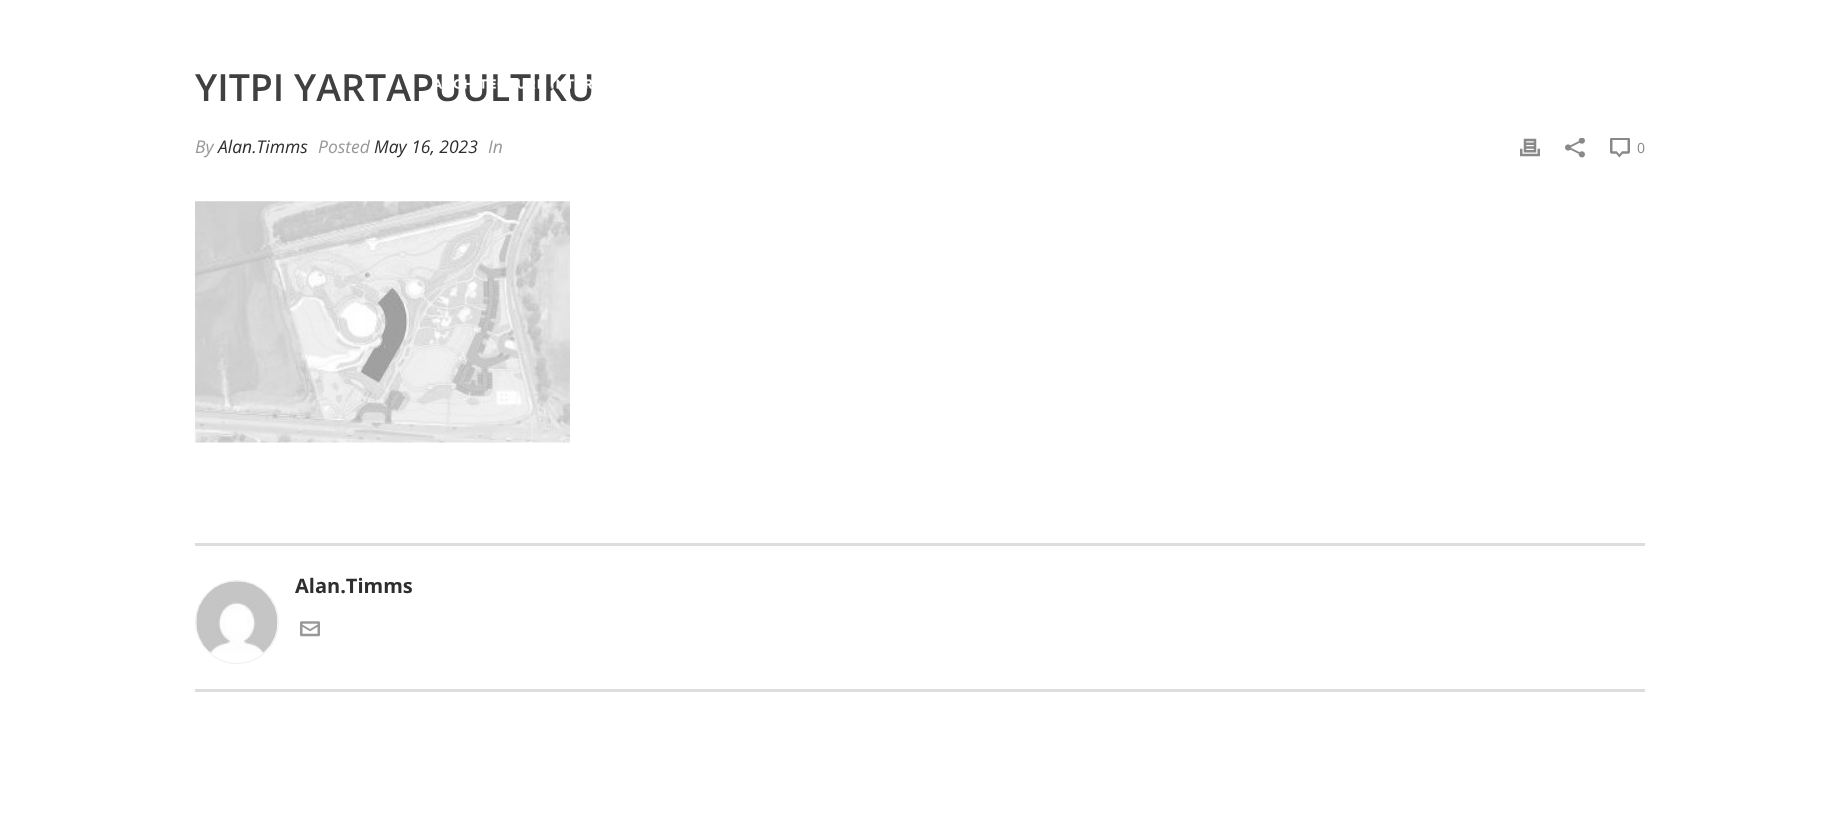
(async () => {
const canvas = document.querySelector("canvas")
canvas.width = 1840
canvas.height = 822
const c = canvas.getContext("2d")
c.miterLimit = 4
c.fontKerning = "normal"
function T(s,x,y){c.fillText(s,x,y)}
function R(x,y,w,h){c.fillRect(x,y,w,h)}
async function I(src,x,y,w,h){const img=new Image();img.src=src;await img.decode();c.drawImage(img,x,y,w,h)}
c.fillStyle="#fff"
R(0,0,1840,822)
c.font="600 37.5px Open Sans"
c.fillStyle="#404040"
T("YITPI YARTAPUULTIKU",195,101)
c.font="italic 17.5px Open Sans"
c.fillStyle="#999"
T("By",195,153)
c.fillStyle="#2e2e2e"
T("Alan.Timms",218,153)
c.fillStyle="#999"
T("Posted",318,153)
c.fillStyle="#2e2e2e"
T("May 16, 2023",374,153)
c.fillStyle="#999"
T("In",488,153)
await I("1.png",1520,138,20,19)
await I("2.png",1565,138,20,20)
await I("3.png",1610,138,20,20)
c.font="14px Open Sans"
c.fillStyle="#898989"
T("0",1637,153)
await I("4.png",195,201,375,242)
c.fillStyle="#ddd"
R(195,543,1450,3)
R(195,689,1450,3)
c.beginPath()
c.arc(237,622,41.5,0,7)
c.strokeStyle="#eee"
c.stroke()
await I("5.png",196,581,82,72)
c.font="bold 20px Open Sans"
c.fillStyle="#2e2e2e"
T("Alan.Timms",295,593)
await I("6.png",300,621,20,16)
await I("7.png",437,79,155,10)
})()
